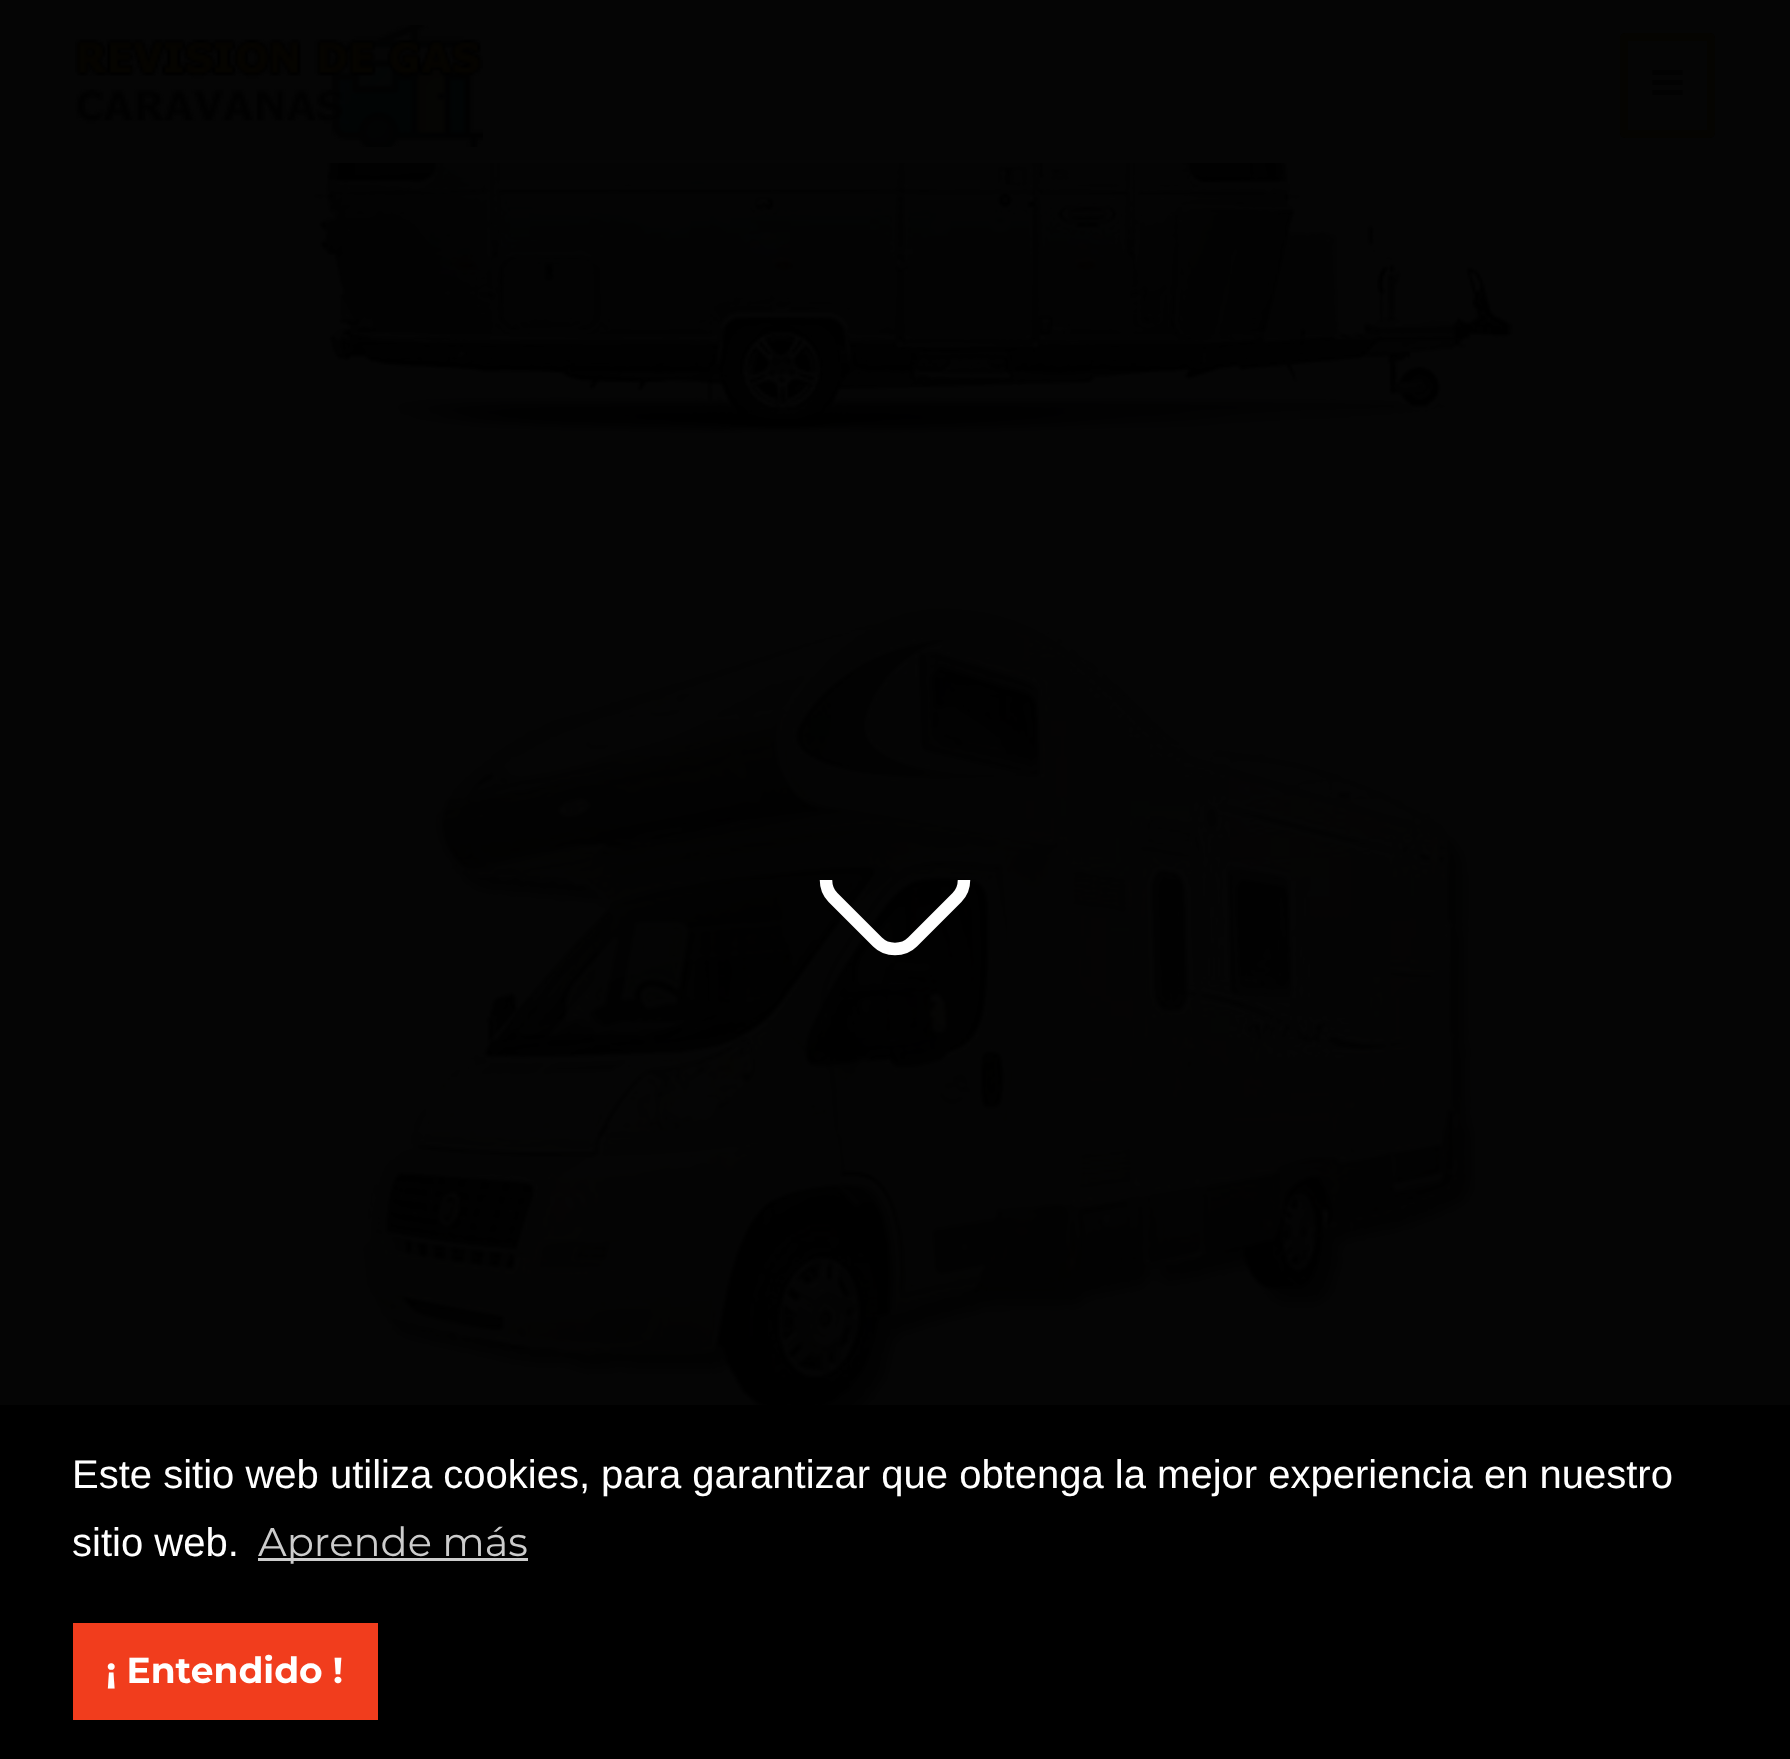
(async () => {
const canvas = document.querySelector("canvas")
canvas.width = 1790
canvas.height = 1759
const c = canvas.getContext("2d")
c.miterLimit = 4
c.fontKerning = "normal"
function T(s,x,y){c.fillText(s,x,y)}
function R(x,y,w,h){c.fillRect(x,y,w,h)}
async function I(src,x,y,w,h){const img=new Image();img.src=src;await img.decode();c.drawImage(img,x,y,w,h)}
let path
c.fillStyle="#050505"
R(0,0,1790,1759)
await I("1.png",75,25,408,122)
c.beginPath()
c.roundRect(1624,37,87,97,1)
c.strokeStyle="#050401"
c.lineWidth=8
c.stroke()
await I("2.png",1652,70,31,25)
await I("3.png",270,163,1250,424)
await I("4.png",270,597,1250,808)
path = new Path2D("M964 880c0 6.5-2.5 13-7 17.5l-44.5 44.5c-4.5 4.5-11 7-17.5 7c-6.5 0-13-2.5-17.5-7l-44.5-44.5c-4.5-4.5-7-11-7-17.5")
c.strokeStyle="#fff"
c.lineWidth=12.5
c.stroke(path)
c.fillStyle="#000"
R(0,1405,1790,354)
c.font="40px Liberation Sans"
c.fillStyle="#fff"
T("Este sitio web utiliza cookies, para garantizar que obtenga la mejor experiencia en nuestro",72,1488)
T("sitio web.",72,1556)
c.fillStyle="#ccc"
R(258,1558,270,3)
c.font="40px Montserrat"
T("Aprende más",258,1556)
c.fillStyle="#f13d1d"
R(73,1623,305,97)
c.font="bold 36px Montserrat"
c.fillStyle="#fff"
T("¡ Entendido !",106,1683)
})()
